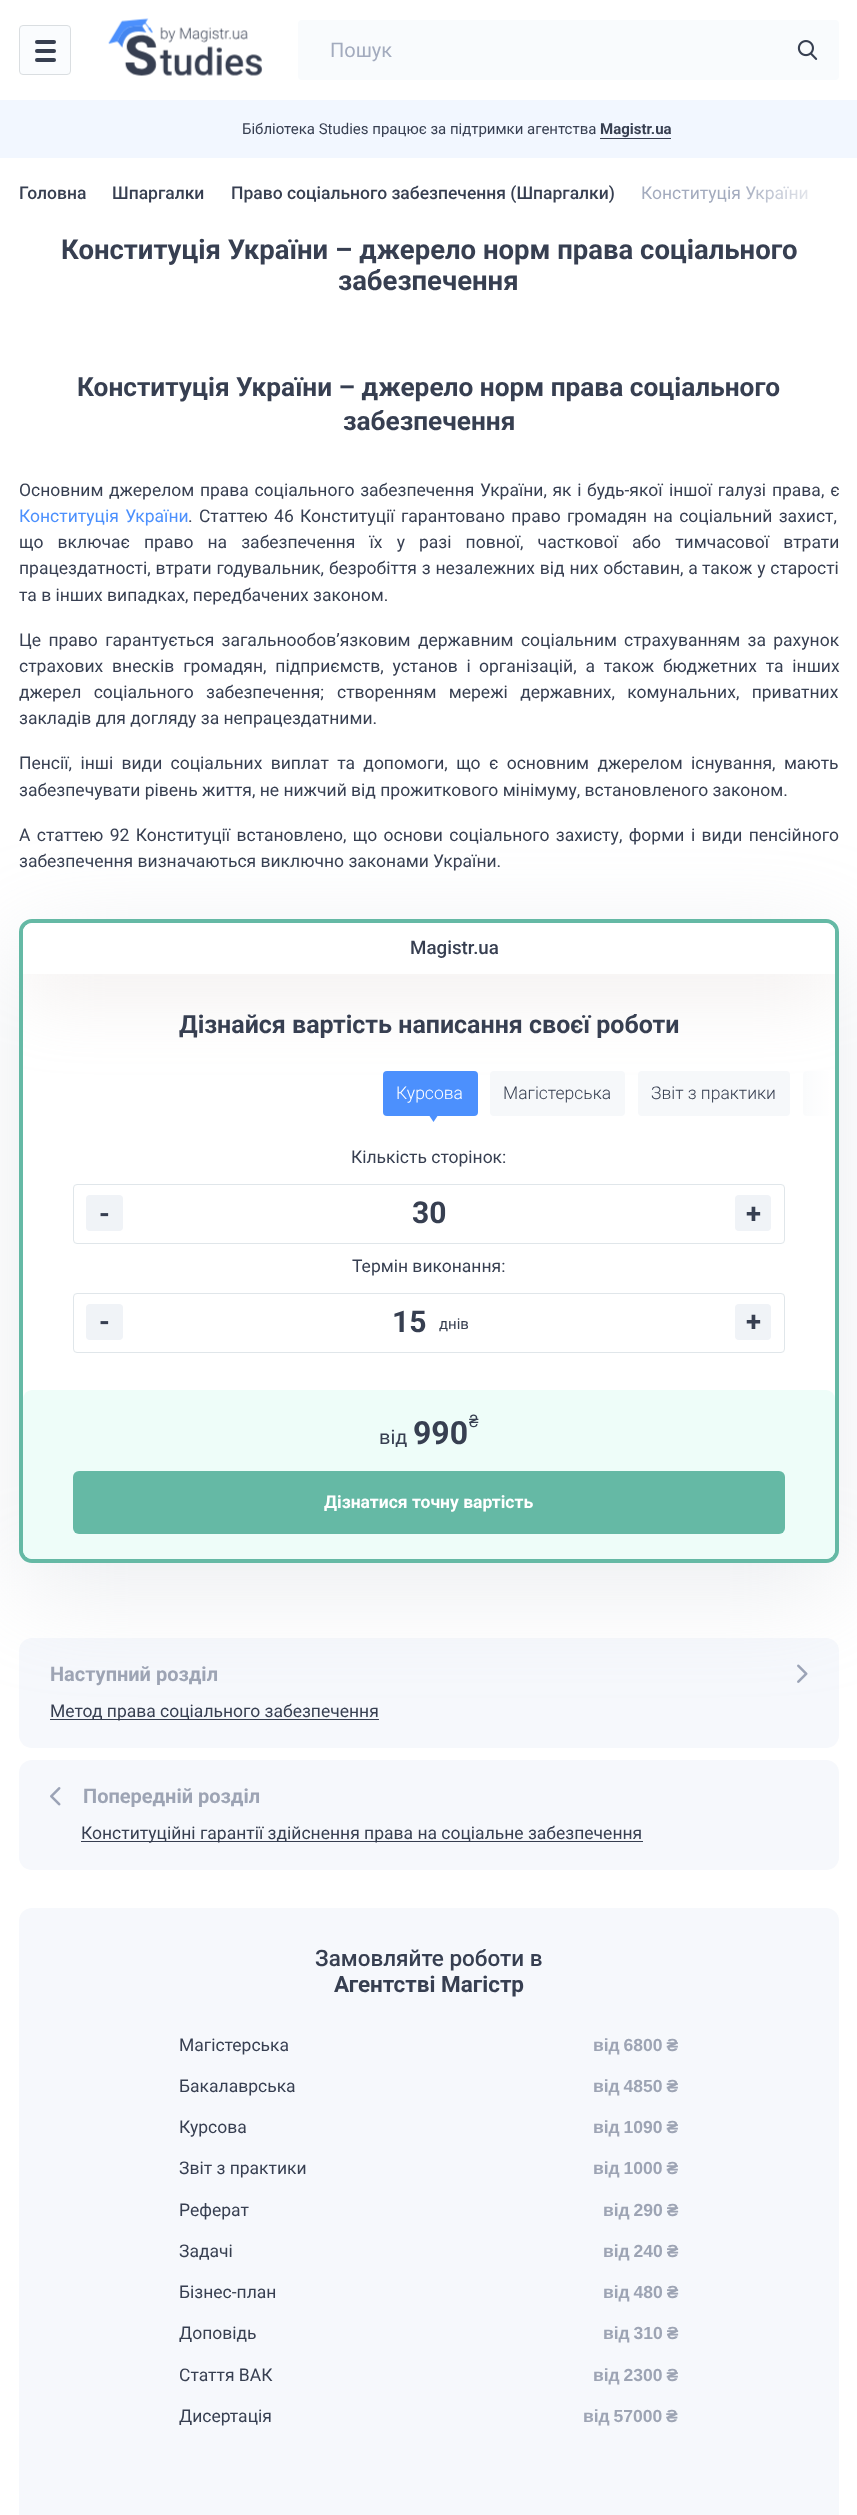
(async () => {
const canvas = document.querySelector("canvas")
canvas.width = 857
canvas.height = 2515
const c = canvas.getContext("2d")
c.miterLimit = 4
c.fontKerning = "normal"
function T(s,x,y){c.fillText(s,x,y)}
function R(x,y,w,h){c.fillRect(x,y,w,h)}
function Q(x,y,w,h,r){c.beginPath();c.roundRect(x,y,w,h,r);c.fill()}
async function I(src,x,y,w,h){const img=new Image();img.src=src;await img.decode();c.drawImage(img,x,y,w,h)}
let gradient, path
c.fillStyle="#fff"
R(0,0,857,2515)
c.fillStyle="#fafcfe"
c.beginPath()
c.roundRect(19.5,25.5,51,49,3.5)
c.fill()
c.strokeStyle="#dadee1"
c.stroke()
c.fillStyle="#373f50"
Q(35,40,21,4,2)
Q(35,49,21,4,2)
Q(35,58,21,4,2)
await I("1.png",108,18,155,58)
c.fillStyle="#f9fbfd"
Q(298,20,541,60,4)
c.font="20px Roboto"
c.fillStyle="#a3abbe"
T("Пошук",330,57)
await I("2.png",797,40,21,20)
c.fillStyle="#f2f7ff"
R(0,100,857,58)
c.font="15px Roboto"
c.fillStyle="#373f51"
T("Бібліотека Studies працює за підтримки агентства",242,134)
c.font="bold 15px Roboto"
T("Magistr.ua",600,134)
R(600,138,71,1)
c.font="500 17.5px Roboto"
T("Головна",19,199)
T("Шпаргалки",112,199)
T("Право соціального забезпечення (Шпаргалки)",231,199)
c.font="17.5px Roboto"
c.fillStyle="#a3abbe"
T("Конституція України",641,199)
gradient = c.createLinearGradient(839,193,738,193)
gradient.addColorStop(0,"#fff")
gradient.addColorStop(1,"#ffffff00")
c.fillStyle = gradient
R(746,186,62,17)
c.font="bold 27.5px Roboto"
c.fillStyle="#373f51"
T("Конституція України – джерело норм права соціального",61,259)
T("забезпечення",338,290)
c.font="bold 26.25px Roboto"
T("Конституція України – джерело норм права соціального",77,396)
T("забезпечення",343,430)
c.wordSpacing="1.25px"
c.font="17.5px Roboto"
T("Основним джерелом права соціального забезпечення України, як і будь-якої",19,496)
c.wordSpacing="1.5px"
T("іншої галузі права, є",669,496)
c.wordSpacing="2px"
c.fillStyle="#4c90fd"
T("Конституція України",19,522)
c.fillStyle="#373f51"
T(". Статтею 46 Конституції гарантовано право громадян на соціальний захист,",188,522)
c.wordSpacing="9.75px"
T("що включає",19,548)
T("право на забезпечення їх у разі повної, часткової або тимчасової втрати",144,548)
c.wordSpacing="0.5px"
T("працездатності, втрати годувальник, безробіття з незалежних від них обставин, а",19,574)
T("також у старості",702,574)
c.wordSpacing="0px"
T("та в інших випадках, передбачених законом.",19,601)
c.wordSpacing="3px"
T("Це право гарантується загальнообов’язковим державним соціальним",19,646)
T("страхуванням за рахунок",624,646)
c.wordSpacing="4.5px"
T("страхових внесків громадян, підприємств, установ і",19,672)
T("організацій, а також бюджетних та інших",479,672)
c.wordSpacing="8px"
T("джерел соціального забезпечення;",19,698)
T("створенням мережі державних, комунальних, приватних",337,698)
c.wordSpacing="0px"
T("закладів для догляду за непрацездатними.",19,724)
c.wordSpacing="4px"
T("Пенсії, інші види соціальних виплат та допомоги, що є основним джерелом",19,769)
T("існування, мають",691,769)
c.wordSpacing="0px"
T("забезпечувати рівень життя, не нижчий від прожиткового мінімуму, встановленого законом.",19,796)
c.wordSpacing="2px"
T("А статтею 92 Конституції встановлено, що основи соціального захисту, форми",19,841)
T("і види пенсійного",691,841)
c.wordSpacing="0px"
T("забезпечення визначаються виключно законами України.",19,867)
c.fillStyle="#f6f8fc"
Q(19,1638,820,110,13)
c.fillStyle="#373f51"
R(50,1719,329,1)
c.fillStyle="#bec3cc4d"
c.filter="blur(50px)"
c.beginPath()
c.roundRect(19,944,820,644,13)
c.fill()
c.filter="none"
c.fillStyle="#fff"
c.beginPath()
c.roundRect(21,921,816,640,11)
c.fill()
c.strokeStyle="#65b9a5"
c.lineWidth=4
c.stroke()
c.save()
c.beginPath()
c.roundRect(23,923,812,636,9)
c.clip()
c.fillStyle="#ccc0be4d"
c.filter="blur(37px)"
c.beginPath()
c.rect(23,941,812,52)
c.fill()
c.filter="none"
c.restore()
c.beginPath()
c.roundRect(23,923,812,51,[9,9,0,0])
c.fill()
c.font="500 18.75px Roboto"
c.fillStyle="#373f51"
T("Magistr.ua",410,954)
c.font="bold 25px Roboto"
T("Дізнайся вартість написання своєї роботи",179,1033)
c.fillStyle="#4c90fd"
Q(383,1071,95,45,4)
c.font="300 17.5px Roboto"
c.fillStyle="#fff"
T("Курсова",396,1099)
c.fillStyle="#4c90fd"
path = new Path2D("M428.5 1114.5h10l-5 7.5z")
c.fill(path)
c.fillStyle="#f6f8fa"
Q(490,1071,135,45,4)
c.fillStyle="#373f51"
T("Магістерська",503,1099)
c.fillStyle="#f6f8fa"
Q(638,1071,152,45,4)
c.fillStyle="#373f51"
T("Звіт з практики",651,1099)
c.fillStyle="#f6f8fa"
c.beginPath()
c.roundRect(803,1071,32,45,[4,0,0,4])
c.fill()
gradient = c.createLinearGradient(835,1100,779,1100)
gradient.addColorStop(.07,"#fff")
gradient.addColorStop(.95,"#ffffff00")
c.fillStyle = gradient
R(803,1071,32,45)
c.font="17.5px Roboto"
c.fillStyle="#373f51"
T("Кількість сторінок:",351,1163)
c.beginPath()
c.roundRect(73.5,1184.5,711,59,3.5)
c.strokeStyle="#e0e6ea"
c.lineWidth=1
c.stroke()
c.fillStyle="#f0f3f7"
Q(86,1195,37,36,4)
c.font="bold 27.5px Roboto"
c.fillStyle="#373f51"
T("-",99,1223)
c.font="bold 30px Roboto"
T("30",412,1223)
c.fillStyle="#f0f3f7"
Q(735,1195,36,36,4)
c.font="bold 27.5px Roboto"
c.fillStyle="#373f51"
T("+",746,1223)
c.font="17.5px Roboto"
T("Термін виконання:",352,1272)
c.beginPath()
c.roundRect(73.5,1293.5,711,59,3.5)
c.stroke()
c.fillStyle="#f0f3f7"
Q(86,1304,37,36,4)
c.font="bold 27.5px Roboto"
c.fillStyle="#373f51"
T("-",99,1331)
c.font="bold 30px Roboto"
T("15",392,1332)
c.font="15px Roboto"
T("днів",439,1329)
c.fillStyle="#f0f3f7"
Q(735,1304,36,36,4)
c.font="bold 27.5px Roboto"
c.fillStyle="#373f51"
T("+",746,1331)
c.fillStyle="#eefdf9"
Q(23,1390,812,169,9)
c.font="20px Roboto"
c.fillStyle="#373f51"
T("від",379,1444)
c.font="bold 32px Roboto"
T("990",413,1444)
c.font="17px Liberation Sans"
T("₴",469,1427)
c.fillStyle="#65b9a5"
Q(73,1471,712,63,6)
c.font="bold 17.5px Roboto"
c.fillStyle="#fff"
T("Дізнатися точну вартість",324,1508)
c.font="bold 20px Roboto"
c.fillStyle="#9da4b4"
T("Наступний розділ",50,1681)
await I("3.png",797,1664,11,19)
c.font="17.5px Roboto"
c.fillStyle="#373f51"
T("Метод права соціального забезпечення",50,1717)
c.fillStyle="#f6f8fc"
Q(19,1760,820,110,13)
await I("4.png",50,1787,11,19)
c.font="bold 20px Roboto"
c.fillStyle="#9da4b4"
T("Попередній розділ",83,1803)
c.fillStyle="#373f51"
R(81,1841,562,1)
c.font="17.5px Roboto"
T("Конституційні гарантії здійснення права на соціальне забезпечення",81,1839)
c.fillStyle="#f6f8fc"
Q(19,1908,820,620,13)
c.font="500 22.5px Roboto"
c.fillStyle="#373f51"
T("Замовляйте роботи в",315,1966)
c.font="bold 22.5px Roboto"
T("Агентстві Магістр",334,1992)
c.font="17.5px Roboto"
T("Магістерська",179,2051)
c.wordSpacing="-1px"
c.font="bold 17.5px Liberation Sans"
c.fillStyle="#9da4b4"
T("від 6800 ₴",593,2051)
c.wordSpacing="0px"
c.font="17.5px Roboto"
c.fillStyle="#373f51"
T("Бакалаврська",179,2092)
c.wordSpacing="-1px"
c.font="bold 17.5px Liberation Sans"
c.fillStyle="#9da4b4"
T("від 4850 ₴",593,2092)
c.wordSpacing="0px"
c.font="17.5px Roboto"
c.fillStyle="#373f51"
T("Курсова",179,2133)
c.wordSpacing="-1px"
c.font="bold 17.5px Liberation Sans"
c.fillStyle="#9da4b4"
T("від 1090 ₴",593,2133)
c.wordSpacing="0px"
c.font="17.5px Roboto"
c.fillStyle="#373f51"
T("Звіт з практики",179,2174)
c.wordSpacing="-1px"
c.font="bold 17.5px Liberation Sans"
c.fillStyle="#9da4b4"
T("від 1000 ₴",593,2174)
c.wordSpacing="0px"
c.font="17.5px Roboto"
c.fillStyle="#373f51"
T("Реферат",179,2216)
c.wordSpacing="-1px"
c.font="bold 17.5px Liberation Sans"
c.fillStyle="#9da4b4"
T("від 290 ₴",603,2216)
c.wordSpacing="0px"
c.font="17.5px Roboto"
c.fillStyle="#373f51"
T("Задачі",179,2257)
c.wordSpacing="-1px"
c.font="bold 17.5px Liberation Sans"
c.fillStyle="#9da4b4"
T("від 240 ₴",603,2257)
c.wordSpacing="0px"
c.font="17.5px Roboto"
c.fillStyle="#373f51"
T("Бізнес-план",179,2298)
c.wordSpacing="-1px"
c.font="bold 17.5px Liberation Sans"
c.fillStyle="#9da4b4"
T("від 480 ₴",603,2298)
c.wordSpacing="0px"
c.font="17.5px Roboto"
c.fillStyle="#373f51"
T("Доповідь",179,2339)
c.wordSpacing="-1px"
c.font="bold 17.5px Liberation Sans"
c.fillStyle="#9da4b4"
T("від 310 ₴",603,2339)
c.wordSpacing="0px"
c.font="17.5px Roboto"
c.fillStyle="#373f51"
T("Стаття ВАК",179,2381)
c.wordSpacing="-1px"
c.font="bold 17.5px Liberation Sans"
c.fillStyle="#9da4b4"
T("від 2300 ₴",593,2381)
c.wordSpacing="0px"
c.font="17.5px Roboto"
c.fillStyle="#373f51"
T("Дисертація",179,2422)
c.wordSpacing="-1px"
c.font="bold 17.5px Liberation Sans"
c.fillStyle="#9da4b4"
T("від 57000 ₴",583,2422)
})()
